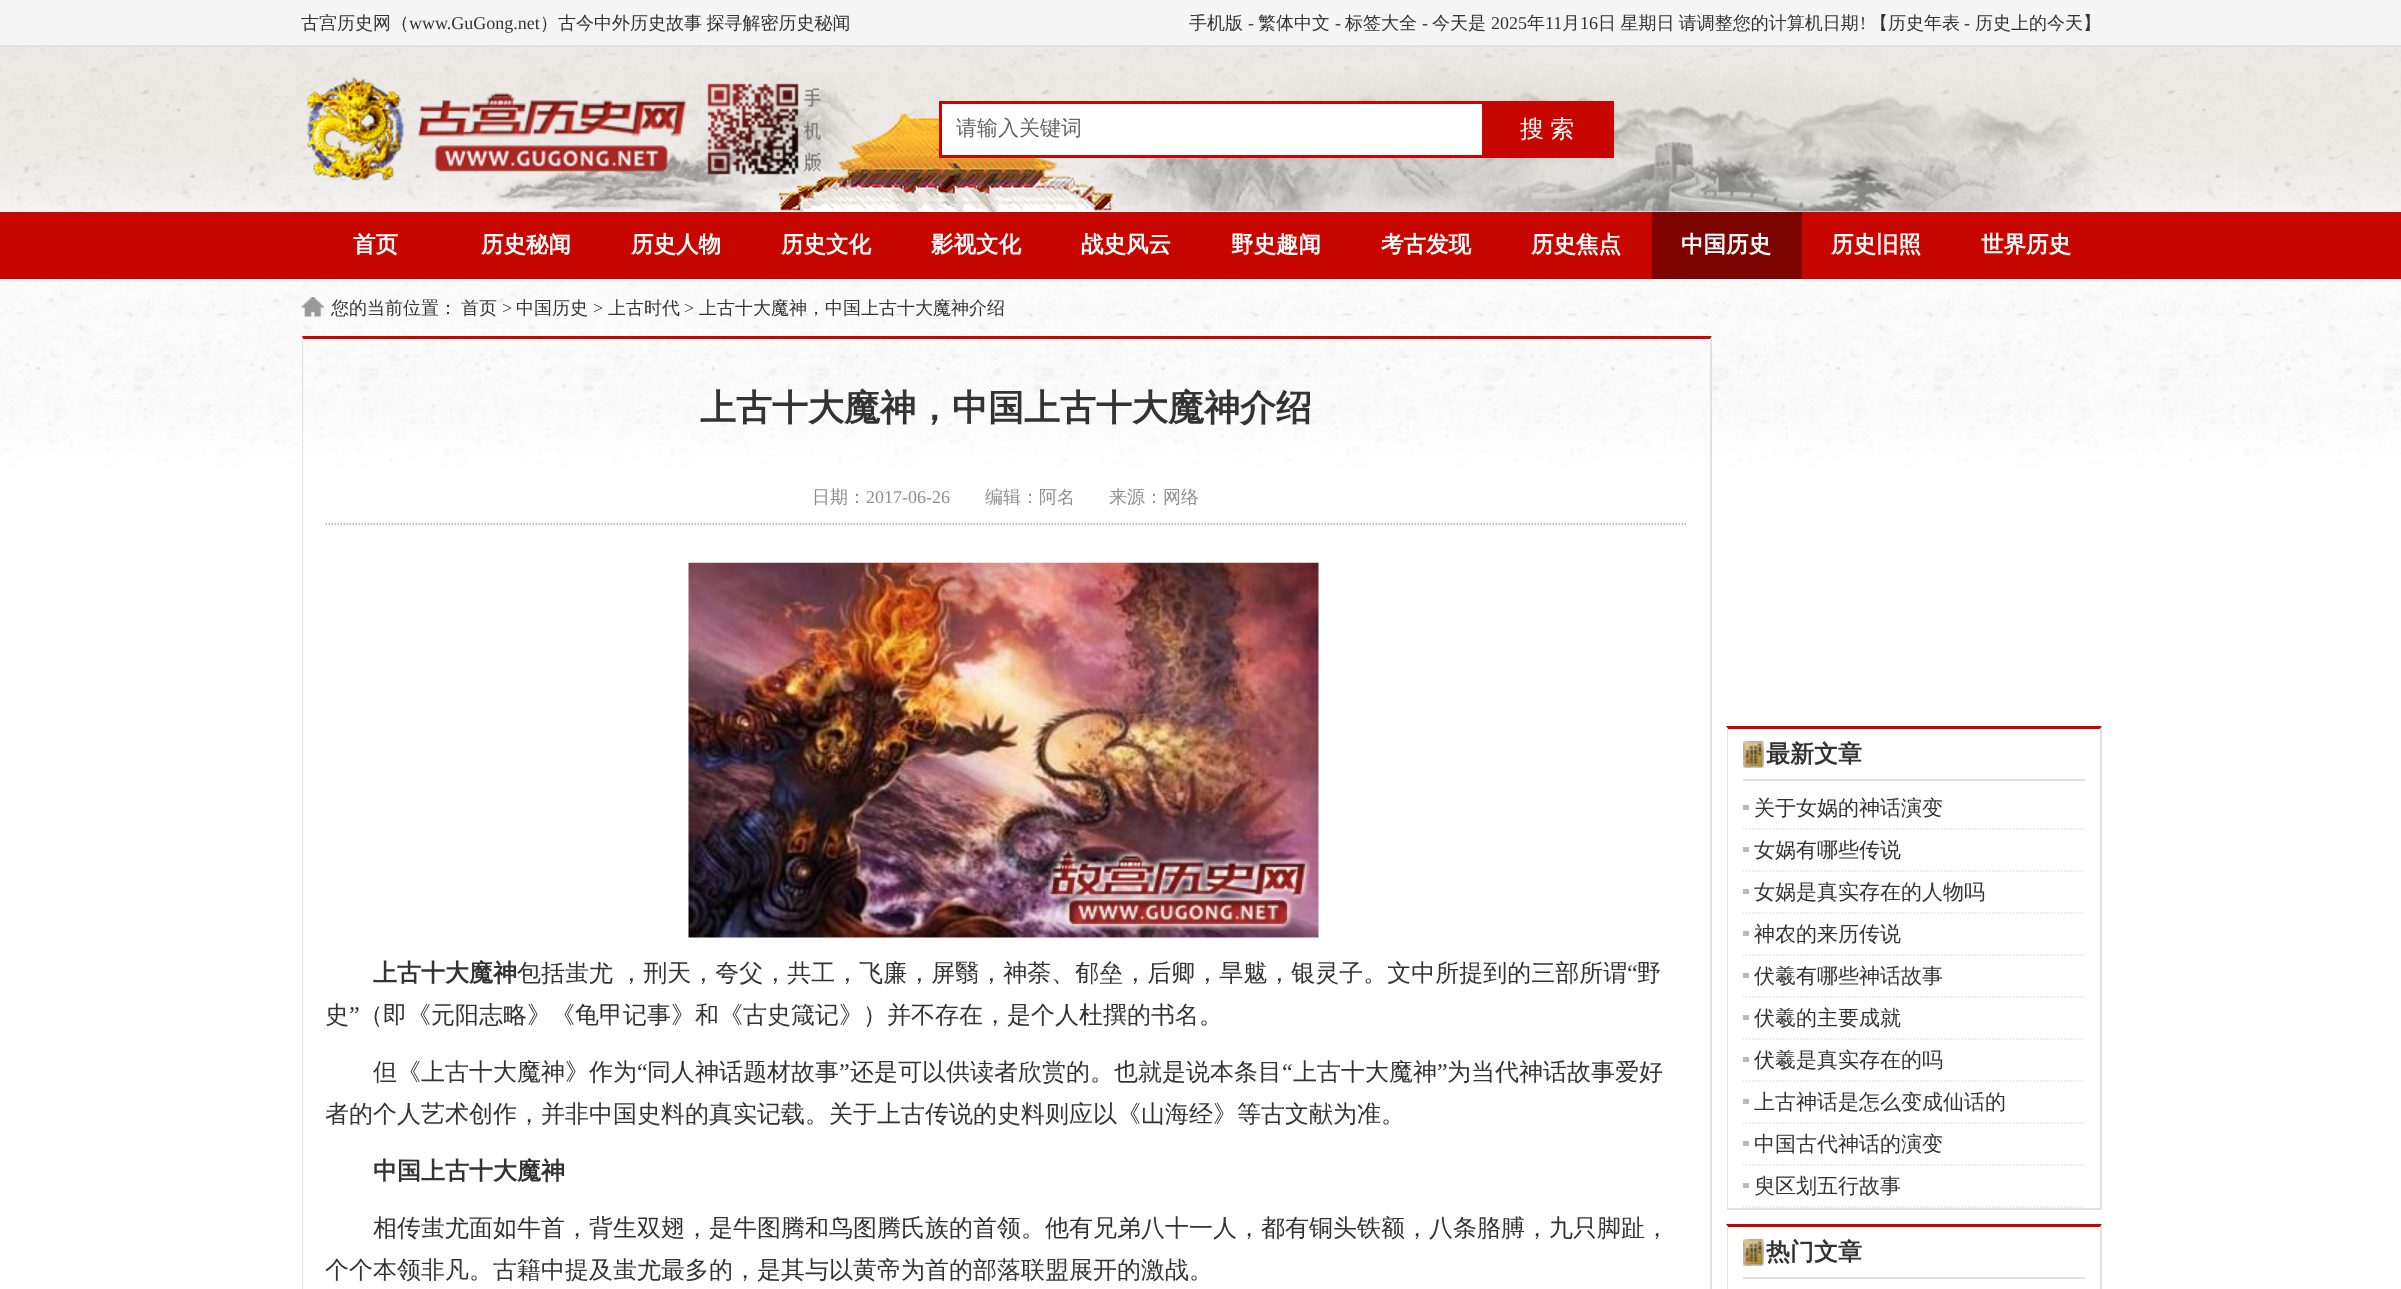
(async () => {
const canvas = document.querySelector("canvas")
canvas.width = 2401
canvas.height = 1289
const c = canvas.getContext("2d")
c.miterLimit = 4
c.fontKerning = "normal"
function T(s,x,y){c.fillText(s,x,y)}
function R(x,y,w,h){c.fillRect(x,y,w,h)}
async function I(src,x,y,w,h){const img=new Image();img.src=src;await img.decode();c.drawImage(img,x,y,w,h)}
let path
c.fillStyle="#fff"
R(0,0,2401,1289)
await I("1.png",0,47,2401,421)
c.fillStyle="#f5f5f5"
R(0,0,2401,45)
c.fillStyle="#e3e3e3"
R(0,45,2401,2)
c.font="500 18px WenQuanYi Zen Hei"
c.fillStyle="#333"
T("古宫历史网（",301,29)
c.font="18px Liberation Serif"
T("www.GuGong.net",409,29)
c.wordSpacing="-1px"
c.font="500 18px WenQuanYi Zen Hei"
T("）古今中外历史故事 探寻解密历史秘闻",540,29)
c.wordSpacing="0px"
T("手机版",1189,29)
c.font="18px Liberation Serif"
T("-",1248,29)
c.font="500 18px WenQuanYi Zen Hei"
T("繁体中文",1258,29)
c.font="18px Liberation Serif"
T("-",1335,29)
c.font="500 18px WenQuanYi Zen Hei"
T("标签大全",1345,29)
c.font="18px Liberation Serif"
T("-",1422,29)
c.font="500 18px WenQuanYi Zen Hei"
T("今天是",1432,29)
c.font="18px Liberation Serif"
T("2025",1491,29)
c.font="500 18px WenQuanYi Zen Hei"
T("年",1527,29)
c.font="18px Liberation Serif"
T("11",1545,29)
c.font="500 18px WenQuanYi Zen Hei"
T("月",1562,29)
c.font="18px Liberation Serif"
T("16",1580,29)
c.wordSpacing="-1px"
c.font="500 18px WenQuanYi Zen Hei"
T("日 星期日 请调整您的计算机日期",1598,29)
c.wordSpacing="0px"
c.font="18px Liberation Serif"
T("!",1860,29)
c.font="500 18px WenQuanYi Zen Hei"
T("【历史年表",1870,29)
c.font="18px Liberation Serif"
T("-",1964,29)
c.font="500 18px WenQuanYi Zen Hei"
T("历史上的今天】",1975,29)
await I("2.png",306,76,515,105)
c.fillStyle="#fff"
R(942,104,540,51)
c.fillStyle="#c70600"
R(939,101,543,3)
R(939,155,543,3)
R(939,101,3,57)
c.font="500 21px WenQuanYi Zen Hei"
c.fillStyle="#666"
T("请输入关键词",956,135)
c.fillStyle="#c70600"
R(1482,101,132,57)
c.wordSpacing="-1px"
c.font="500 24px WenQuanYi Zen Hei"
c.fillStyle="#fff"
T("搜 索",1520,137)
c.fillStyle="#c70600"
R(0,212,2401,67)
c.wordSpacing="0px"
c.font="bold 22.5px WenQuanYi Zen Hei"
c.fillStyle="#fff"
T("首页",353,252)
T("历史秘闻",481,252)
T("历史人物",631,252)
T("历史文化",781,252)
T("影视文化",931,252)
T("战史风云",1081,252)
T("野史趣闻",1231,252)
T("考古发现",1381,252)
T("历史焦点",1531,252)
c.fillStyle="#7d0400"
R(1652,212,150,67)
c.fillStyle="#fff"
T("中国历史",1681,252)
T("历史旧照",1831,252)
T("世界历史",1981,252)
await I("3.png",301,297,23,20)
c.font="500 18px WenQuanYi Zen Hei"
c.fillStyle="#333"
T("您的当前位置：",331,314)
T("首页",461,314)
c.font="18px Liberation Serif"
T(">",502,314)
c.font="500 18px WenQuanYi Zen Hei"
T("中国历史",516,314)
c.font="18px Liberation Serif"
T(">",593,314)
c.font="500 18px WenQuanYi Zen Hei"
T("上古时代",608,314)
c.font="18px Liberation Serif"
T(">",684,314)
c.font="500 18px WenQuanYi Zen Hei"
T("上古十大魔神，中国上古十大魔神介绍",699,314)
c.fillStyle="#c70600"
path = new Path2D("M302 336h1410l-2 3h-1407z")
c.fill(path)
c.fillStyle="#e1e1e1"
path = new Path2D("M1712 336v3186l-2-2v-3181z")
c.fill(path)
path = new Path2D("M302 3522v-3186l1 3v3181z")
c.fill(path)
c.font="bold 36px WenQuanYi Zen Hei"
c.fillStyle="#333"
T("上古十大魔神，中国上古十大魔神介绍",700,420)
path = new Path2D("M325.5 524h1362")
c.strokeStyle="#ababab"
c.lineWidth=1.5
c.setLineDash([1.5,1.5])
c.stroke(path)
c.font="500 18px WenQuanYi Zen Hei"
c.fillStyle="#8f8f8f"
T("日期：",812,503)
c.font="18px Liberation Serif"
T("2017-06-26",866,503)
c.font="500 18px WenQuanYi Zen Hei"
T("编辑：阿名",985,503)
T("来源：网络",1109,503)
await I("4.png",688,562,631,376)
c.font="bold 24px WenQuanYi Zen Hei"
c.fillStyle="#333"
T("上古十大魔神",373,981)
c.wordSpacing="-1px"
c.font="500 24px WenQuanYi Zen Hei"
T("包括蚩尤 ，刑天，夸父，共工，飞廉，屏翳，神荼、郁垒，后卿，旱魃，银灵子。文中所提到的三部所谓",517,981)
c.wordSpacing="0px"
c.font="24px Liberation Serif"
T("“",1627,981)
c.font="500 24px WenQuanYi Zen Hei"
T("野",1637,981)
T("史",325,1023)
c.font="24px Liberation Serif"
T("”",349,1023)
c.font="500 24px WenQuanYi Zen Hei"
T("（即《元阳志略》《龟甲记事》和《古史箴记》）并不存在，是个人杜撰的书名。",359,1023)
T("但《上古十大魔神》作为",373,1080)
c.font="24px Liberation Serif"
T("“",637,1080)
c.font="500 24px WenQuanYi Zen Hei"
T("同人神话题材故事",647,1080)
c.font="24px Liberation Serif"
T("”",839,1080)
c.font="500 24px WenQuanYi Zen Hei"
T("还是可以供读者欣赏的。也就是说本条目",850,1080)
c.font="24px Liberation Serif"
T("“",1282,1080)
c.font="500 24px WenQuanYi Zen Hei"
T("上古十大魔神",1293,1080)
c.font="24px Liberation Serif"
T("”",1437,1080)
c.font="500 24px WenQuanYi Zen Hei"
T("为当代神话故事爱好",1447,1080)
T("者的个人艺术创作，并非中国史料的真实记载。关于上古传说的史料则应以《山海经》等古文献为准。",325,1122)
c.font="bold 24px WenQuanYi Zen Hei"
T("中国上古十大魔神",373,1179)
c.font="500 24px WenQuanYi Zen Hei"
T("相传蚩尤面如牛首，背生双翅，是牛图腾和鸟图腾氏族的首领。他有兄弟八十一人，都有铜头铁额，八条胳膊，九只脚趾，",373,1236)
T("个个本领非凡。古籍中提及蚩尤最多的，是其与以黄帝为首的部落联盟展开的激战。",325,1278)
c.fillStyle="#c70600"
path = new Path2D("M1726 726h376l-2 3h-372z")
c.fill(path)
c.fillStyle="#e1e1e1"
path = new Path2D("M2102 726v483l-2-1v-479z")
c.fill(path)
R(1727,1208,375,2)
c.save()
c.beginPath()
c.rect(1727,336,375,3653)
c.clip()
path = new Path2D("M1726 1209v-483l2 3v479z")
c.fill(path)
c.restore()
await I("5.png",1743,741,21,27)
R(1743,779,342,2)
c.font="bold 24px WenQuanYi Zen Hei"
c.fillStyle="#333"
T("最新文章",1766,762)
c.fillStyle="#bababa"
R(1743,805,6,5)
path = new Path2D("M1743 829h342")
c.strokeStyle="#e1e1e1"
c.stroke(path)
c.font="500 21px WenQuanYi Zen Hei"
c.fillStyle="#333"
T("关于女娲的神话演变",1754,815)
c.fillStyle="#bababa"
R(1743,847,6,5)
path = new Path2D("M1743 871h342")
c.stroke(path)
c.fillStyle="#333"
T("女娲有哪些传说",1754,857)
c.fillStyle="#bababa"
R(1743,889,6,5)
path = new Path2D("M1743 913h342")
c.stroke(path)
c.fillStyle="#333"
T("女娲是真实存在的人物吗",1754,899)
c.fillStyle="#bababa"
R(1743,931,6,5)
path = new Path2D("M1743 955h342")
c.stroke(path)
c.fillStyle="#333"
T("神农的来历传说",1754,941)
c.fillStyle="#bababa"
R(1743,973,6,5)
path = new Path2D("M1743 997h342")
c.stroke(path)
c.fillStyle="#333"
T("伏羲有哪些神话故事",1754,983)
c.fillStyle="#bababa"
R(1743,1015,6,5)
path = new Path2D("M1743 1039h342")
c.stroke(path)
c.fillStyle="#333"
T("伏羲的主要成就",1754,1025)
c.fillStyle="#bababa"
R(1743,1057,6,5)
path = new Path2D("M1743 1081h342")
c.stroke(path)
c.fillStyle="#333"
T("伏羲是真实存在的吗",1754,1067)
c.fillStyle="#bababa"
R(1743,1099,6,5)
path = new Path2D("M1743 1123h342")
c.stroke(path)
c.fillStyle="#333"
T("上古神话是怎么变成仙话的",1754,1109)
c.fillStyle="#bababa"
R(1743,1141,6,5)
path = new Path2D("M1743 1165h342")
c.stroke(path)
c.fillStyle="#333"
T("中国古代神话的演变",1754,1151)
c.fillStyle="#bababa"
R(1743,1183,6,5)
path = new Path2D("M1743 1207h342")
c.stroke(path)
c.fillStyle="#333"
T("臾区划五行故事",1754,1193)
c.fillStyle="#c70600"
path = new Path2D("M1726 1224h376l-2 3h-372z")
c.fill(path)
c.fillStyle="#e1e1e1"
path = new Path2D("M2102 1224v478l-2-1v-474z")
c.fill(path)
c.save()
c.beginPath()
c.rect(1727,336,375,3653)
c.clip()
path = new Path2D("M1726 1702v-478l2 3v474z")
c.fill(path)
c.restore()
await I("5.png",1743,1239,21,27)
R(1743,1277,342,2)
c.font="bold 24px WenQuanYi Zen Hei"
c.fillStyle="#333"
T("热门文章",1766,1260)
})()
